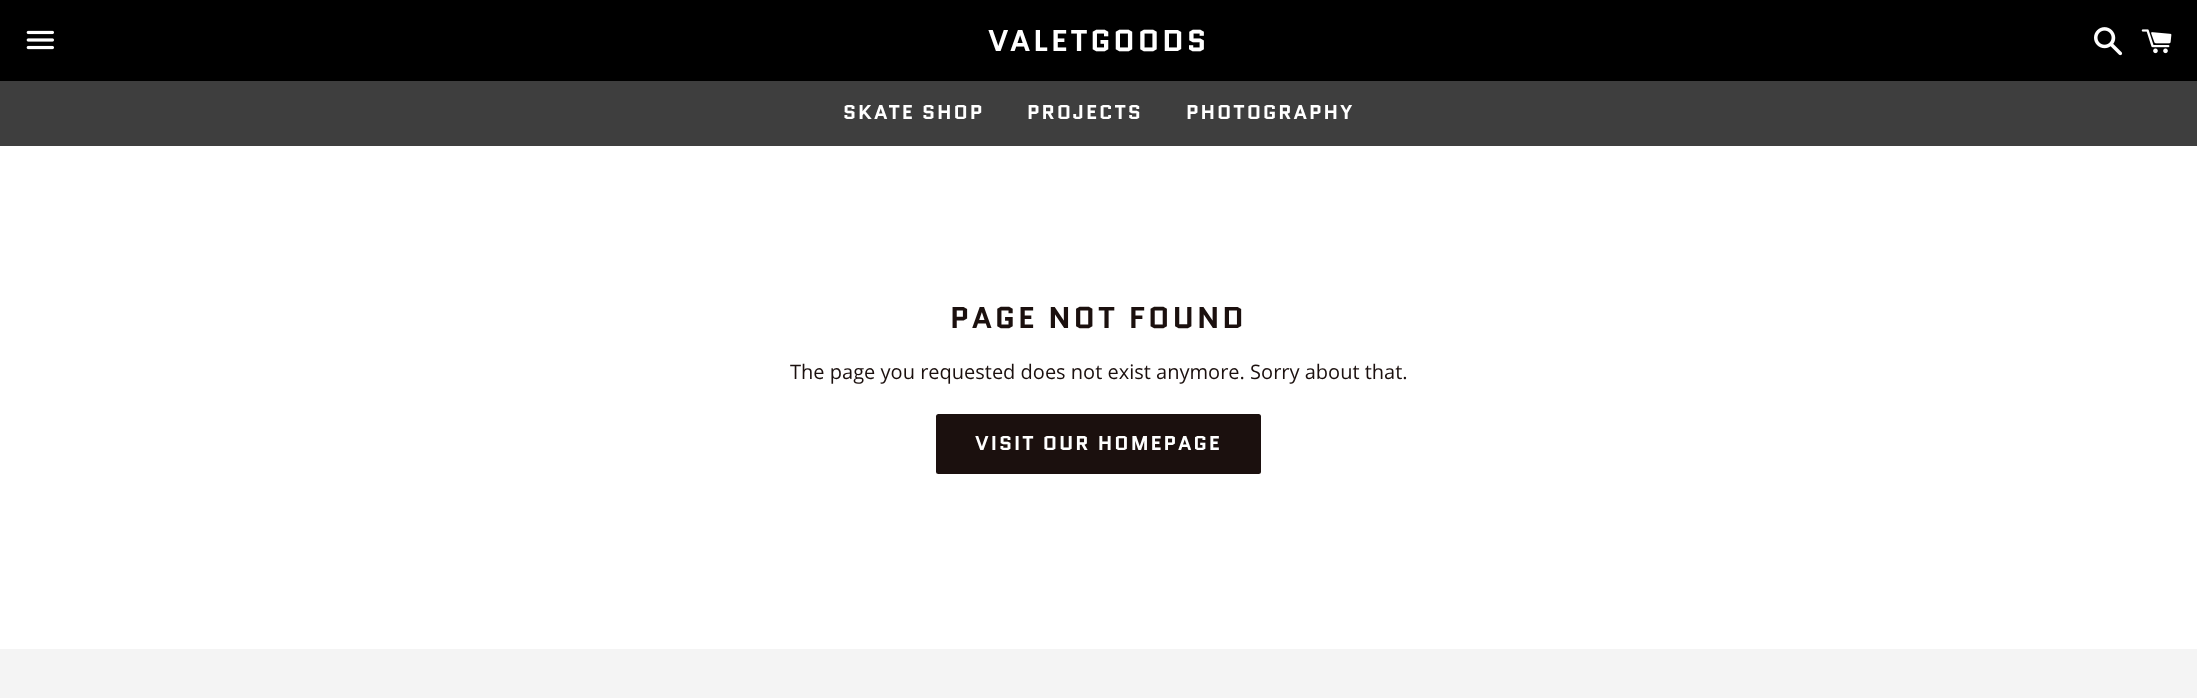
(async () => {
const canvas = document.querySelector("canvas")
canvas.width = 2197
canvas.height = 698
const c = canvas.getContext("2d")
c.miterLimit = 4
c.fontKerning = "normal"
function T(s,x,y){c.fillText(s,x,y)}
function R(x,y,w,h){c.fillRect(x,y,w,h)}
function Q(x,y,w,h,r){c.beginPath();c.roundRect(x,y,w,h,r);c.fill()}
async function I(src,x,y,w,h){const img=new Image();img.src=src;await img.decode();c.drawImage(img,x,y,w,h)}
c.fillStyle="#fff"
R(0,0,2197,698)
c.fillStyle="#000"
R(0,0,2197,81)
await I("1.png",26,30,28,20)
c.letterSpacing="3px"
c.font="bold 30px Quantico"
c.fillStyle="#fff"
T("VALETGOODS",988,51)
await I("2.png",2094,27,29,29)
await I("3.png",2141,29,31,25)
c.fillStyle="#3e3e3e"
R(0,81,2197,65)
c.letterSpacing="2px"
c.font="bold 20px Quantico"
c.fillStyle="#fff"
T("SKATE SHOP",843,119)
T("PROJECTS",1027,119)
T("PHOTOGRAPHY",1186,119)
c.letterSpacing="3px"
c.font="bold 30px Quantico"
c.fillStyle="#1b100e"
T("PAGE NOT FOUND",950,328)
c.letterSpacing="0px"
c.font="20px Open Sans"
T("The page you requested does not exist anymore. Sorry about that.",790,379)
Q(936,414,325,60,2.5)
c.letterSpacing="2px"
c.font="bold 20px Quantico"
c.fillStyle="#fff"
T("VISIT OUR HOMEPAGE",975,450)
c.fillStyle="#f4f4f4"
R(0,649,2197,49)
})()
